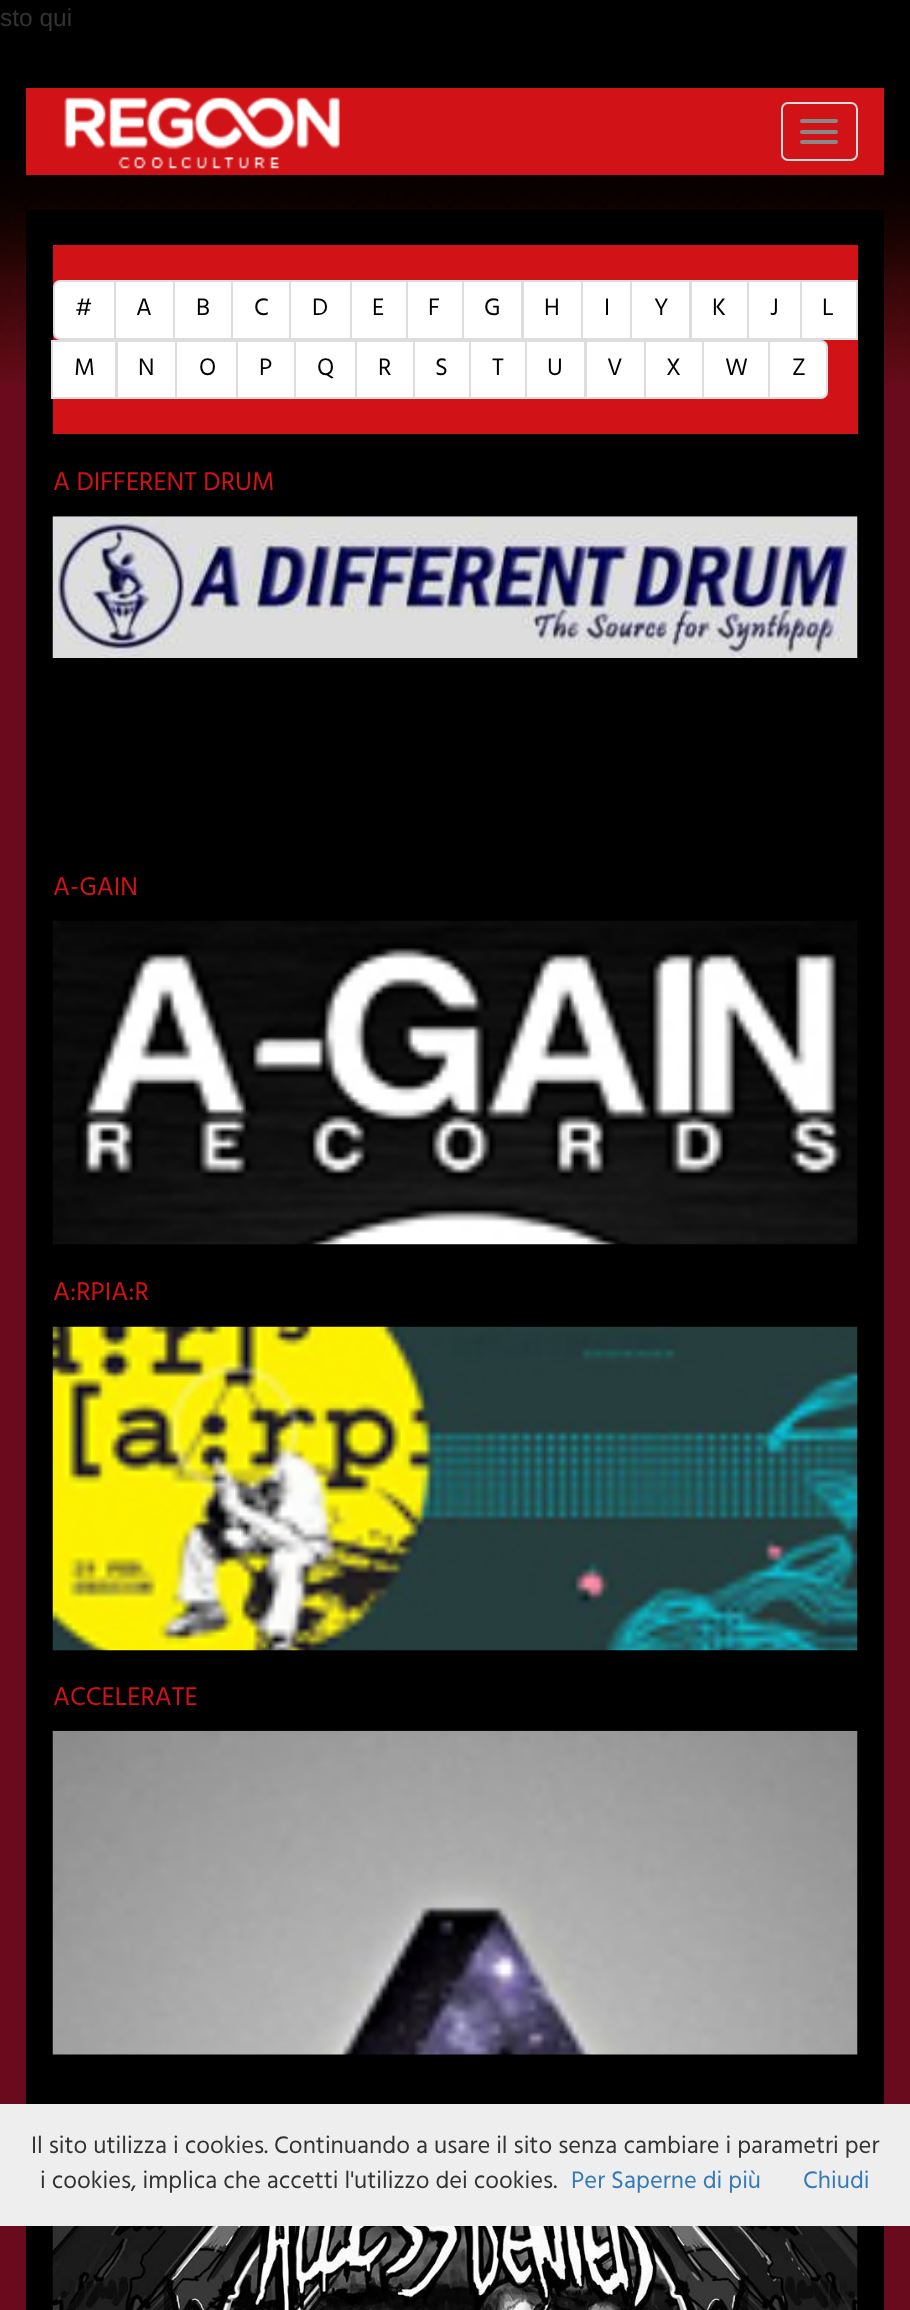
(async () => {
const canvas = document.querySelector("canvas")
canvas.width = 910
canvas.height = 2310
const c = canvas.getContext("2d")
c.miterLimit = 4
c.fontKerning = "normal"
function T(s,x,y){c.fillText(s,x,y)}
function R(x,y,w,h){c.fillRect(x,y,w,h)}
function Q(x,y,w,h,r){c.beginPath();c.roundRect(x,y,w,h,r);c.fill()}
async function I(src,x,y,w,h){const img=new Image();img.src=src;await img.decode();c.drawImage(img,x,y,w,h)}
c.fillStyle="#690b1c"
R(0,0,910,2310)
await I("1.png",0,0,910,386)
c.font="24.5px Liberation Sans"
c.fillStyle="#333"
T("sto qui",0,26)
c.fillStyle="#d11216"
R(26,88,858,87)
await I("2.png",64,97,276,72)
c.beginPath()
c.roundRect(782,103,75,57,6)
c.strokeStyle="#ddd"
c.lineWidth=2
c.stroke()
c.fillStyle="#888"
Q(800,119,38,4,2)
Q(800,130,38,4,2)
Q(800,140,38,4,2)
c.fillStyle="#000"
R(26,210,858,2100)
c.fillStyle="#d11216"
R(53,245,805,189)
c.fillStyle="#fff"
c.beginPath()
c.roundRect(54,281,61,58,[6,0,0,6])
c.fill()
c.stroke()
c.font="24.5px Hind"
c.fillStyle="#000"
T("#",75,315)
c.fillStyle="#fff"
c.beginPath()
c.rect(115,281,59,58)
c.fill()
c.stroke()
c.fillStyle="#000"
T("A",136,315)
c.fillStyle="#fff"
c.beginPath()
c.rect(174,281,58,58)
c.fill()
c.stroke()
c.fillStyle="#000"
T("B",196,315)
c.fillStyle="#fff"
c.beginPath()
c.rect(232,281,58,58)
c.fill()
c.stroke()
c.fillStyle="#000"
T("C",254,315)
c.fillStyle="#fff"
c.beginPath()
c.rect(290,281,61,58)
c.fill()
c.stroke()
c.fillStyle="#000"
T("D",312,315)
c.fillStyle="#fff"
c.beginPath()
c.rect(351,281,56,58)
c.fill()
c.stroke()
c.fillStyle="#000"
T("E",372,315)
c.fillStyle="#fff"
c.beginPath()
c.rect(407,281,56,58)
c.fill()
c.stroke()
c.fillStyle="#000"
T("F",428,315)
c.fillStyle="#fff"
c.beginPath()
c.rect(463,281,59,58)
c.fill()
c.stroke()
c.fillStyle="#000"
T("G",484,315)
c.fillStyle="#fff"
c.beginPath()
c.rect(523,281,59,58)
c.fill()
c.stroke()
c.fillStyle="#000"
T("H",544,315)
c.fillStyle="#fff"
c.beginPath()
c.rect(582,281,49,58)
c.fill()
c.stroke()
c.fillStyle="#000"
T("I",604,315)
c.fillStyle="#fff"
c.beginPath()
c.rect(631,281,59,58)
c.fill()
c.stroke()
c.fillStyle="#000"
T("Y",654,315)
c.fillStyle="#fff"
c.beginPath()
c.rect(691,281,57,58)
c.fill()
c.stroke()
c.fillStyle="#000"
T("K",712,315)
c.fillStyle="#fff"
c.beginPath()
c.rect(748,281,53,58)
c.fill()
c.stroke()
c.fillStyle="#000"
T("J",770,315)
c.fillStyle="#fff"
c.beginPath()
c.rect(801,281,56,58)
c.fill()
c.stroke()
c.fillStyle="#000"
T("L",822,315)
c.fillStyle="#fff"
c.beginPath()
c.rect(52,341,64,57)
c.fill()
c.stroke()
c.fillStyle="#000"
T("M",74,375)
c.fillStyle="#fff"
c.beginPath()
c.rect(117,341,59,57)
c.fill()
c.stroke()
c.fillStyle="#000"
T("N",138,375)
c.fillStyle="#fff"
c.beginPath()
c.rect(176,341,61,57)
c.fill()
c.stroke()
c.fillStyle="#000"
T("O",199,375)
c.fillStyle="#fff"
c.beginPath()
c.rect(237,341,58,57)
c.fill()
c.stroke()
c.fillStyle="#000"
T("P",259,375)
c.fillStyle="#fff"
c.beginPath()
c.rect(295,341,61,57)
c.fill()
c.stroke()
c.fillStyle="#000"
T("Q",317,375)
c.fillStyle="#fff"
c.beginPath()
c.rect(356,341,58,57)
c.fill()
c.stroke()
c.fillStyle="#000"
T("R",378,375)
c.fillStyle="#fff"
c.beginPath()
c.rect(414,341,56,57)
c.fill()
c.stroke()
c.fillStyle="#000"
T("S",435,375)
c.fillStyle="#fff"
c.beginPath()
c.rect(470,341,56,57)
c.fill()
c.stroke()
c.fillStyle="#000"
T("T",492,375)
c.fillStyle="#fff"
c.beginPath()
c.rect(526,341,59,57)
c.fill()
c.stroke()
c.fillStyle="#000"
T("U",547,375)
c.fillStyle="#fff"
c.beginPath()
c.rect(586,341,59,57)
c.fill()
c.stroke()
c.fillStyle="#000"
T("V",607,375)
c.fillStyle="#fff"
c.beginPath()
c.rect(645,341,58,57)
c.fill()
c.stroke()
c.fillStyle="#000"
T("X",666,375)
c.fillStyle="#fff"
c.beginPath()
c.rect(703,341,66,57)
c.fill()
c.stroke()
c.fillStyle="#000"
T("W",725,375)
c.fillStyle="#fff"
c.beginPath()
c.roundRect(769,341,58,57,[0,6,6,0])
c.fill()
c.stroke()
c.fillStyle="#000"
T("Z",792,375)
c.font="26.25px Hind"
c.fillStyle="#d11216"
T("A DIFFERENT DRUM",53,490)
await I("3.png",52,516,806,142)
T("A-GAIN",53,895)
await I("4.png",52,920,806,325)
T("A:RPIA:R",53,1300)
await I("5.png",52,1326,806,325)
T("ACCELERATE",53,1705)
await I("6.png",52,1730,806,325)
await I("7.png",52,2226,806,84)
c.fillStyle="#eee"
R(0,2104,910,122)
c.font="24.5px Hind"
c.fillStyle="#333"
T("Il sito utilizza i cookies. Continuando a usare il sito senza cambiare i parametri per",31,2153)
T("i cookies, implica che accetti l'utilizzo dei cookies.",40,2188)
c.fillStyle="#337ab7"
T("Per Saperne di più",571,2188)
T("Chiudi",803,2188)
})()
